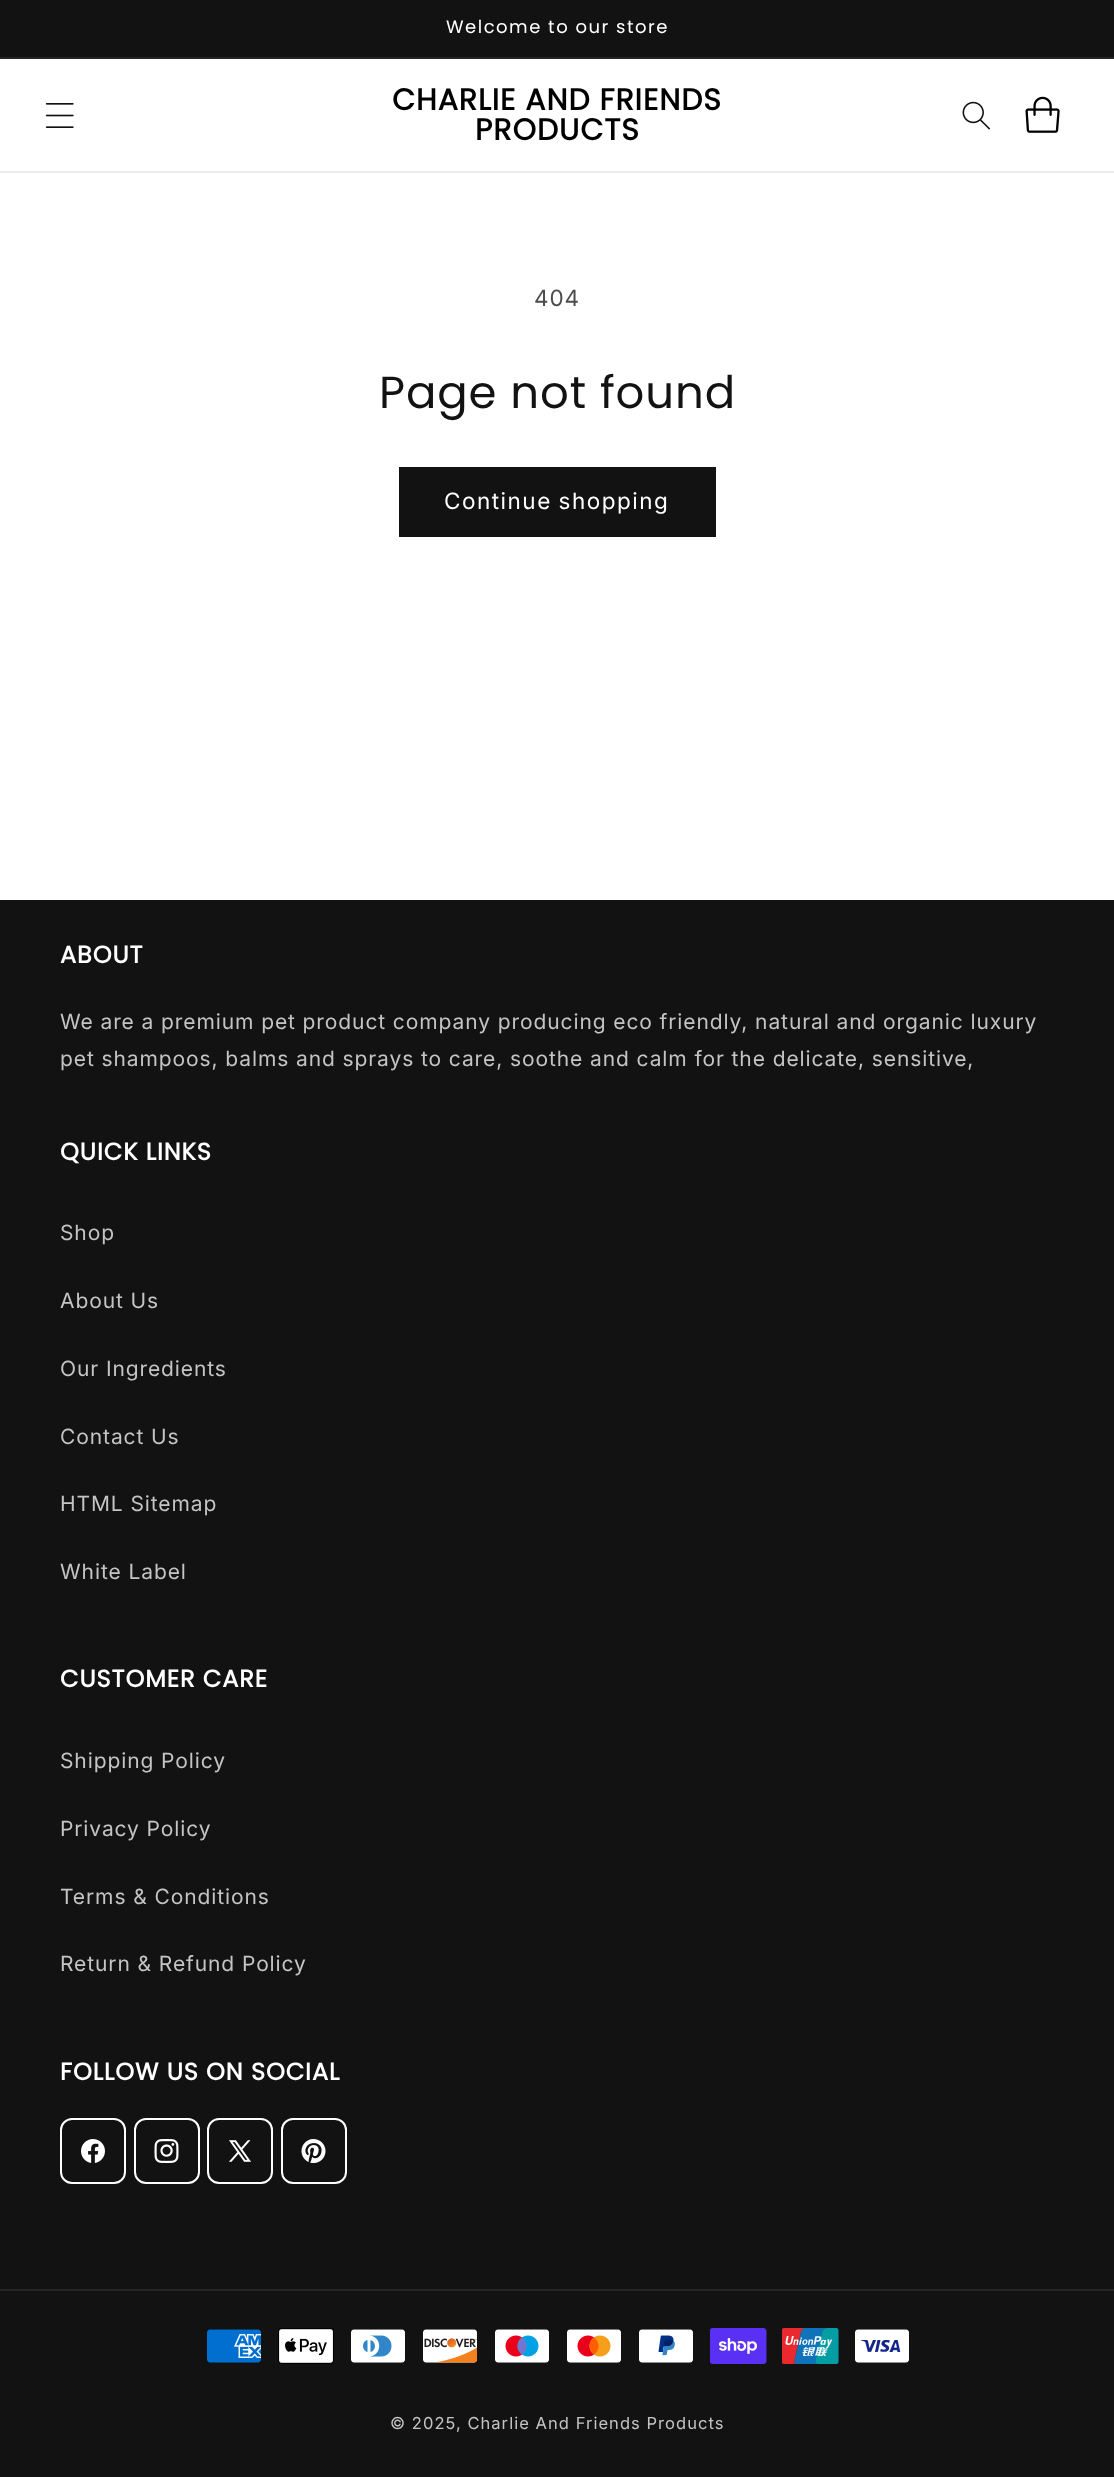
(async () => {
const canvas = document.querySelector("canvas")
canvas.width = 1114
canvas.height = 2477
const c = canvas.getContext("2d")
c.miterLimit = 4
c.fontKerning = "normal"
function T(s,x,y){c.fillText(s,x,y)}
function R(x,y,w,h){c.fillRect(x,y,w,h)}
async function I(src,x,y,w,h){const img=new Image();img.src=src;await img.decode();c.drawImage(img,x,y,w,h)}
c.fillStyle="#fff"
R(0,0,1114,2477)
c.fillStyle="#121212"
R(0,0,1114,57)
c.fillStyle="#252525"
R(0,57,1114,2)
c.letterSpacing="1.5px"
c.font="18px Poppins"
c.fillStyle="#fff"
T("Welcome to our store",446,33)
c.fillStyle="#ececec"
R(0,171,1114,2)
await I("1.png",45,103,29,25)
c.letterSpacing="0.9px"
c.font="bold 30px Poppins"
c.fillStyle="#000"
T("CHARLIE AND FRIENDS",392,110)
T("PRODUCTS",475,140)
await I("2.png",962,101,28,29)
await I("3.png",1025,96,35,37)
c.font="22.5px Inter"
c.fillStyle="#4d4d4d"
T("404",534,306)
c.font="45px Poppins"
c.fillStyle="#121212"
T("Page not found",379,408)
R(399,467,317,70)
c.letterSpacing="1.5px"
c.wordSpacing="-1px"
c.font="22.5px Inter"
c.fillStyle="#fff"
T("Continue shopping",444,509)
c.fillStyle="#121212"
R(0,900,1114,1577)
c.letterSpacing="0.9px"
c.wordSpacing="0px"
c.font="bold 24px Poppins"
c.fillStyle="#fff"
T("ABOUT",60,963)
c.font="21px Inter"
c.fillStyle="#c4c4c4"
T("We are a premium pet product company producing eco friendly, natural and organic luxury",60,1029)
T("pet shampoos, balms and sprays to care, soothe and calm for the delicate, sensitive,",60,1066)
c.font="bold 24px Poppins"
c.fillStyle="#fff"
T("QUICK LINKS",60,1160)
c.font="21px Inter"
c.fillStyle="#c4c4c4"
T("Shop",60,1240)
T("About Us",60,1308)
T("Our Ingredients",60,1376)
T("Contact Us",60,1444)
T("HTML Sitemap",60,1511)
T("White Label",60,1579)
c.font="bold 24px Poppins"
c.fillStyle="#fff"
T("CUSTOMER CARE",60,1687)
c.font="21px Inter"
c.fillStyle="#c4c4c4"
T("Shipping Policy",60,1768)
T("Privacy Policy",60,1836)
T("Terms & Conditions",60,1904)
T("Return & Refund Policy",60,1971)
c.font="bold 24px Poppins"
c.fillStyle="#fff"
T("FOLLOW US ON SOCIAL",60,2080)
c.beginPath()
c.roundRect(61,2119,64,64,11)
c.strokeStyle="#fff"
c.lineWidth=2
c.stroke()
await I("4.png",81,2139,24,24)
c.beginPath()
c.roundRect(135,2119,64,64,11)
c.stroke()
await I("5.png",154,2139,25,24)
c.beginPath()
c.roundRect(208,2119,64,64,11)
c.stroke()
await I("6.png",229,2140,22,22)
c.beginPath()
c.roundRect(282,2119,64,64,11)
c.stroke()
await I("7.png",301,2139,25,25)
c.fillStyle="#252525"
R(0,2289,1114,2)
await I("8.png",207,2329,54,34)
await I("9.png",278,2328,56,36)
await I("10.png",351,2329,54,34)
await I("11.png",423,2329,55,34)
await I("12.png",495,2329,54,34)
await I("13.png",567,2329,54,34)
await I("14.png",639,2329,54,34)
await I("15.png",710,2328,57,36)
await I("16.png",782,2328,57,36)
await I("17.png",855,2329,54,34)
c.letterSpacing="1.05px"
c.font="16.5px Inter"
c.fillStyle="#c4c4c4"
T("© 2025, Charlie And Friends Products",390,2429)
})()
